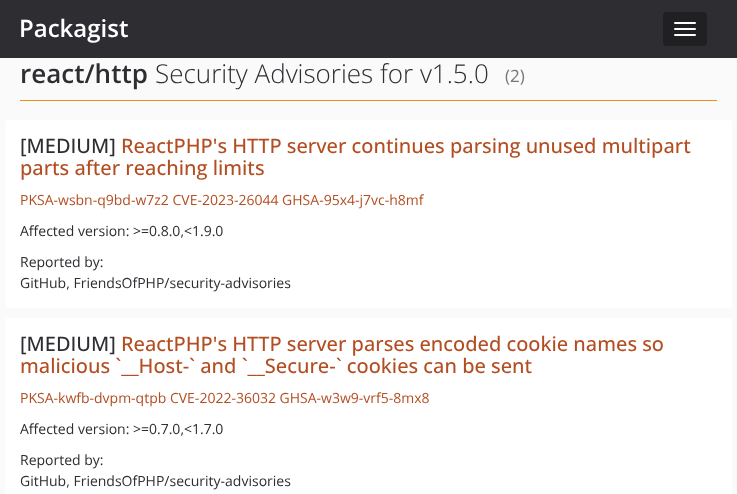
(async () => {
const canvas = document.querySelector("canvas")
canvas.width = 737
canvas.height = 494
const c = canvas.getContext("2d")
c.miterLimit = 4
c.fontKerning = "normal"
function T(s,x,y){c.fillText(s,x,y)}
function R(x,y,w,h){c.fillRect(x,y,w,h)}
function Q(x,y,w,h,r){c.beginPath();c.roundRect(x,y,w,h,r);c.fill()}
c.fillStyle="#fafafa"
R(0,0,737,494)
c.fillStyle="#2d2d32"
R(0,0,737,58)
c.font="600 24px Open Sans"
c.fillStyle="#fff"
T("Packagist",19,37)
c.fillStyle="#202023"
Q(663,12,44,34,4)
c.fillStyle="#fff"
Q(674,22,22,2,1)
Q(674,28,22,2,1)
Q(674,34,22,2,1)
c.fillStyle="#f28d1a"
R(20,100,697,1)
c.font="600 26px Open Sans"
c.fillStyle="#2d2d32"
T("react/http",20,83)
c.font="300 26px Open Sans"
T("Security Advisories for v1.5.0",155,83)
c.font="17px Open Sans"
c.fillStyle="#777"
T("(2)",505,82)
c.fillStyle="#fff"
Q(5,120,727,188,4)
c.font="500 20px Open Sans"
c.fillStyle="#2d2d32"
T("[MEDIUM]",20,153)
c.fillStyle="#b34e22"
T("ReactPHP's HTTP server continues parsing unused multipart",121,153)
T("parts after reaching limits",20,175)
c.font="14px Open Sans"
T("PKSA-wsbn-q9bd-w7z2 CVE-2023-26044 GHSA-95x4-j7vc-h8mf",20,205)
c.fillStyle="#2d2d32"
T("Affected version: >=0.8.0,<1.9.0",20,236)
T("Reported by:",20,267)
T("GitHub, FriendsOfPHP/security-advisories",20,288)
c.fillStyle="#fff"
Q(5,318,727,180,4)
c.font="500 20px Open Sans"
c.fillStyle="#2d2d32"
T("[MEDIUM]",20,351)
c.fillStyle="#b34e22"
T("ReactPHP's HTTP server parses encoded cookie names so",121,351)
T("malicious `__Host-` and `__Secure-` cookies can be sent",20,373)
c.font="14px Open Sans"
T("PKSA-kwfb-dvpm-qtpb CVE-2022-36032 GHSA-w3w9-vrf5-8mx8",20,403)
c.fillStyle="#2d2d32"
T("Affected version: >=0.7.0,<1.7.0",20,434)
T("Reported by:",20,465)
T("GitHub, FriendsOfPHP/security-advisories",20,486)
})()
